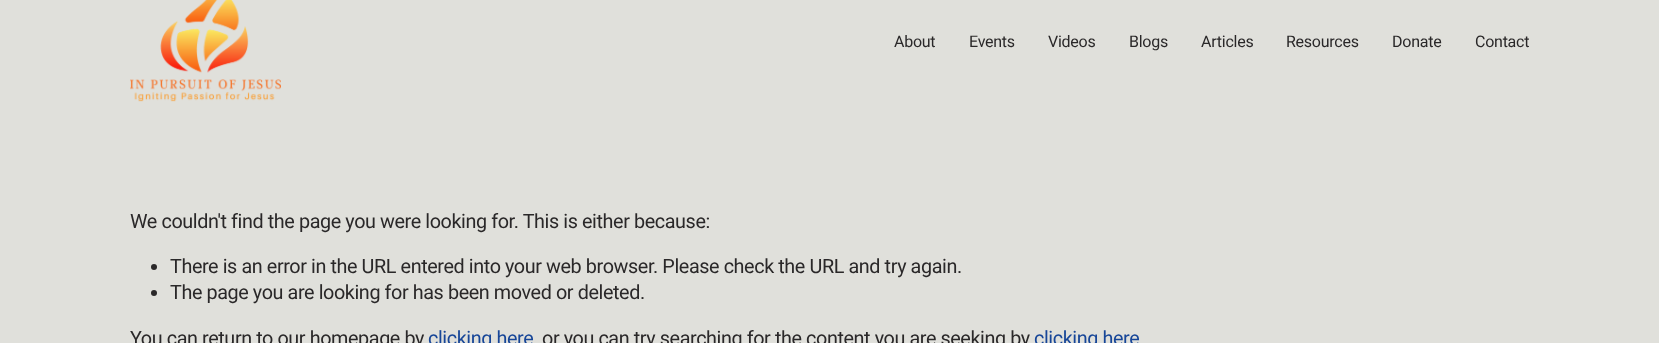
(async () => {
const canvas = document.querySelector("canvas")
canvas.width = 1659
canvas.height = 343
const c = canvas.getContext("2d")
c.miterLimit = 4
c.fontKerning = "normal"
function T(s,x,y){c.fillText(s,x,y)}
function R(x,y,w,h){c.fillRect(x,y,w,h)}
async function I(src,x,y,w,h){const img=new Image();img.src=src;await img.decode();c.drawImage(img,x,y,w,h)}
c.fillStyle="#e0e0db"
R(0,0,1659,343)
await I("1.png",130,0,151,102)
c.letterSpacing="-0.25px"
c.font="16px Roboto"
c.fillStyle="#2a2829"
T("About",894,47)
T("Events",969,47)
T("Videos",1048,47)
T("Blogs",1129,47)
T("Articles",1201,47)
T("Resources",1286,47)
T("Donate",1392,47)
T("Contact",1475,47)
c.letterSpacing="-0.4px"
c.font="19.8px Roboto"
T("We couldn't find the page you were looking for. This is either because:",130,228)
c.beginPath()
c.arc(154,267,3,0,7)
c.fill()
T("There is an error in the URL entered into your web browser. Please check the URL and try again.",170,273)
c.beginPath()
c.arc(154,293,3,0,7)
c.fill()
T("The page you are looking for has been moved or deleted.",170,299)
T("You can return to our homepage by",130,345)
c.fillStyle="#174698"
T("clicking here",428,345)
c.fillStyle="#2a2829"
T("or you can try searching for the content you are seeking by",542,345)
c.fillStyle="#174698"
T("clicking here",1034,345)
})()
